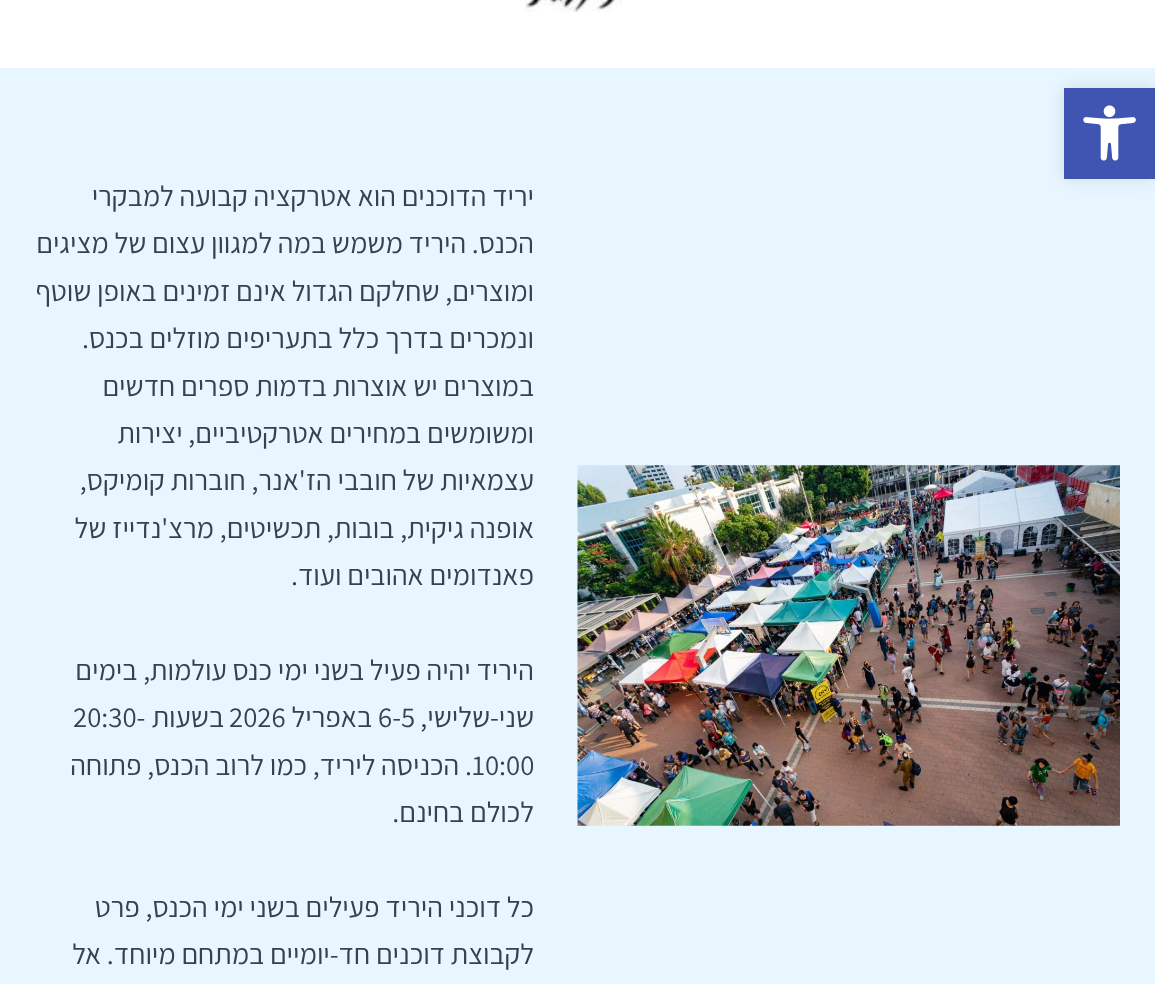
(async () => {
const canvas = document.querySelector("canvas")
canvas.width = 1155
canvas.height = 984
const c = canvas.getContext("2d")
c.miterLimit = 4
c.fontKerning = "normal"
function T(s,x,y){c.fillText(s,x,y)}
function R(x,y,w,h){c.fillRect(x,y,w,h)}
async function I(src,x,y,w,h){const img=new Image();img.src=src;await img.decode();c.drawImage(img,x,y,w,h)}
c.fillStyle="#e7f6ff"
R(0,0,1155,984)
c.fillStyle="#fff"
R(0,0,1155,68)
c.fillStyle="#0000001a"
c.filter="blur(9px)"
c.beginPath()
c.rect(1064,88,91,91)
c.fill()
c.filter="none"
c.fillStyle="#4054b2"
R(1064,88,91,91)
await I("1.png",1083,105,53,56)
await I("2.png",525,0,97,12)
await I("3.png",577,465,543,361)
c.direction="rtl"
c.font="28.75px Assistant"
c.fillStyle="#364151"
T("יריד הדוכנים הוא אטרקציה קבועה למבקרי",534,206)
T("הכנס. היריד משמש במה למגוון עצום של מציגים",534,253)
T("ומוצרים, שחלקם הגדול אינם זמינים באופן שוטף",534,301)
T("ונמכרים בדרך כלל בתעריפים מוזלים בכנס.",534,348)
T("במוצרים יש אוצרות בדמות ספרים חדשים",534,396)
T("ומשומשים במחירים אטרקטיביים, יצירות",534,443)
T("עצמאיות של חובבי הז'אנר, חוברות קומיקס,",534,490)
T("אופנה גיקית, בובות, תכשיטים, מרצ'נדייז של",534,538)
T("פאנדומים אהובים ועוד.",534,585)
T("היריד יהיה פעיל בשני ימי כנס עולמות, בימים",534,680)
T("שני-שלישי,",534,727)
c.direction="ltr"
T("6-5",378,727)
c.direction="rtl"
T("באפריל",372,727)
c.direction="ltr"
T("2026",229,727)
c.direction="rtl"
T("בשעות",224,727)
c.direction="ltr"
T("20:30-",73,727)
T("10:00",472,775)
c.direction="rtl"
T(". הכניסה ליריד, כמו לרוב הכנס, פתוחה",472,775)
T("לכולם בחינם.",534,822)
T("כל דוכני היריד פעילים בשני ימי הכנס, פרט",534,917)
T("לקבוצת דוכנים חד-יומיים במתחם מיוחד. אל",534,964)
})()
